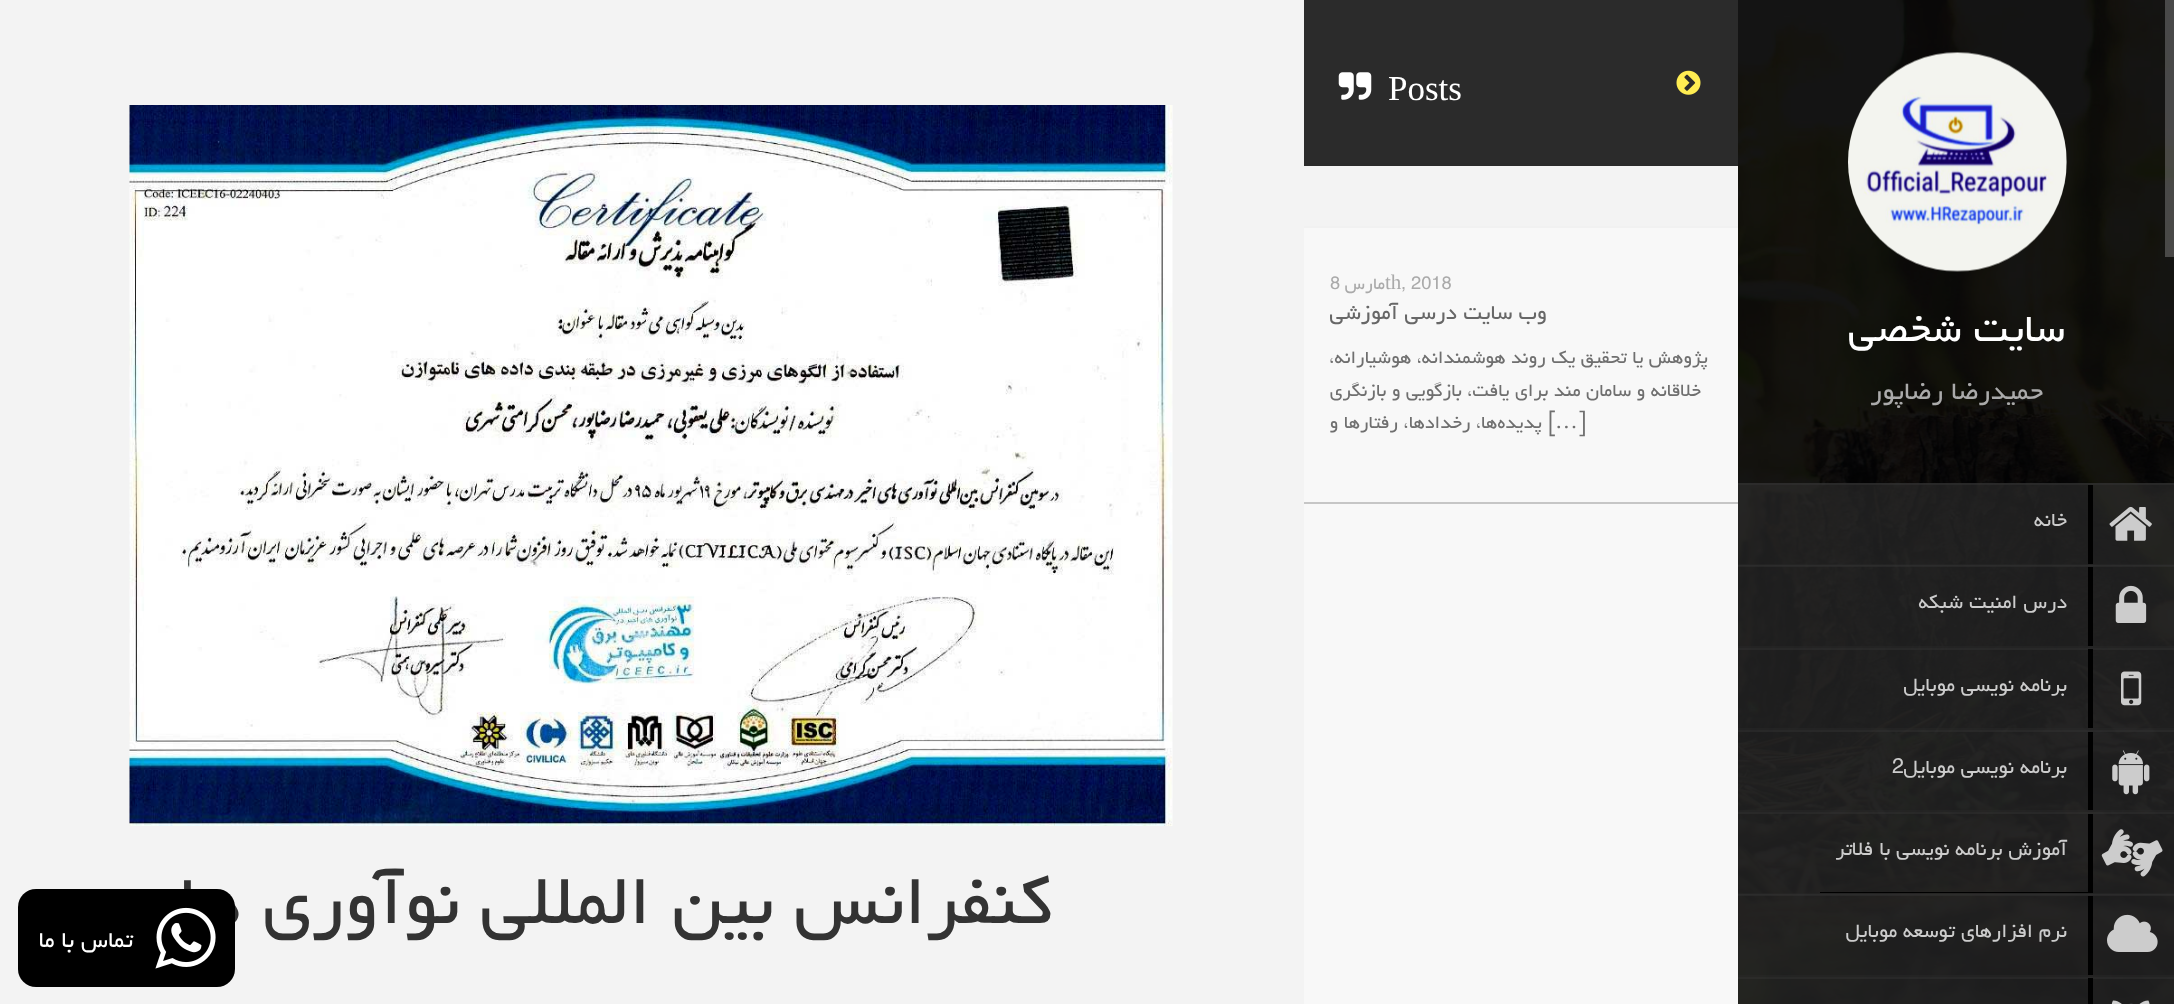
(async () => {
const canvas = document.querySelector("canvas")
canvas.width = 2174
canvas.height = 1004
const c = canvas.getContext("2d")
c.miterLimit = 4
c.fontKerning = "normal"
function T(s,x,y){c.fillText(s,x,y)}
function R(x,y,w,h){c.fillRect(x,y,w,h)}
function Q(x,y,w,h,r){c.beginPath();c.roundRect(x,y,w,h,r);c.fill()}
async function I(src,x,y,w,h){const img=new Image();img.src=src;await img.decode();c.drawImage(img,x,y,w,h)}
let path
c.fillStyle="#fff"
R(0,0,2174,1004)
await I("1.png",1738,0,436,1004)
c.fillStyle="#aaaaaa5c"
R(2165,0,9,257)
await I("2.png",1848,52,219,220)
c.direction="rtl"
c.font="49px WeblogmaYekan"
c.fillStyle="#fff"
T("سایت شخصی",2065,341)
c.font="31.5px WeblogmaYekan"
c.fillStyle="#aaa"
T("حمیدرضا رضاپور",2043,399)
c.fillStyle="#30303099"
R(1738,483,436,82)
c.fillStyle="#37373766"
R(1738,483,436,2)
c.fillStyle="#2b2b2b66"
R(1738,564,436,2)
await I("3.png",2109,506,43,35)
c.fillStyle="#000"
path = new Path2D("M2020 564h73v-79h-5v79z")
c.fill(path)
c.font="24.5px WeblogmaYekan"
c.fillStyle="#ccc"
T("خانه",2067,526)
c.fillStyle="#30303099"
R(1738,565,436,83)
c.fillStyle="#37373766"
R(1738,565,436,2)
c.fillStyle="#2b2b2b66"
R(1738,646,436,2)
await I("4.png",2115,585,32,38)
c.fillStyle="#000"
path = new Path2D("M1904 646h189v-79h-5v79z")
c.fill(path)
c.fillStyle="#ccc"
T("درس امنیت شبکه",2067,608)
c.fillStyle="#30303099"
R(1738,648,436,82)
c.fillStyle="#37373766"
R(1738,648,436,2)
c.fillStyle="#2b2b2b66"
R(1738,728,436,2)
await I("5.png",2121,671,21,35)
c.fillStyle="#000"
path = new Path2D("M1888 649h200v79h5v-79z")
c.fill(path)
c.fillStyle="#ccc"
T("برنامه نویسی موبایل",2067,691)
c.fillStyle="#30303099"
R(1738,730,436,82)
c.fillStyle="#37373766"
R(1738,730,436,2)
c.fillStyle="#2b2b2b66"
R(1738,810,436,2)
await I("6.png",2112,750,38,45)
c.fillStyle="#000"
R(2088,732,5,78)
c.fillStyle="#ccc"
T("برنامه نویسی موبایل",2067,773)
c.direction="ltr"
T("2",1892,773)
c.fillStyle="#30303099"
R(1738,812,436,82)
c.fillStyle="#37373766"
R(1738,812,436,2)
c.fillStyle="#2b2b2b66"
R(1738,893,436,2)
await I("7.png",2101,829,62,48)
c.fillStyle="#000"
path = new Path2D("M1820 892v1h273v-79h-5v78z")
c.fill(path)
c.direction="rtl"
c.fillStyle="#ccc"
T("آموزش برنامه نویسی با فلاتر",2067,855)
c.fillStyle="#30303099"
R(1738,894,436,83)
c.fillStyle="#37373766"
R(1738,894,436,2)
c.fillStyle="#2b2b2b66"
R(1738,975,436,2)
await I("8.png",2107,914,51,38)
c.fillStyle="#000"
path = new Path2D("M1831 975h262v-79h-5v79z")
c.fill(path)
c.fillStyle="#ccc"
T("نرم افزارهای توسعه موبایل",2067,937)
c.fillStyle="#30303099"
R(1738,977,436,27)
c.fillStyle="#37373766"
R(1738,977,436,2)
await I("9.png",2111,1000,39,4)
c.fillStyle="#000"
path = new Path2D("M1831 978h257v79h5v-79z")
c.fill(path)
c.fillStyle="#2b2b2b"
R(1304,0,434,166)
await I("10.png",1676,70,25,25)
c.fillStyle="#f8f8f8"
R(1304,504,434,500)
c.direction="ltr"
c.font="35px Liberation Serif"
c.fillStyle="#fff"
T("Posts",1388,100)
await I("11.png",1338,72,34,28)
c.fillStyle="#f3f3f3"
R(0,0,1304,1004)
c.save()
c.beginPath()
c.rect(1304,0,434,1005)
c.clip()
c.fillStyle="#222"
c.filter="blur(4.5px)"
c.beginPath()
c.rect(1309,173,424,51)
c.fill()
c.filter="none"
c.restore()
R(1304,166,434,60)
c.fillStyle="#f1f1f1"
R(1304,226,434,2)
c.fillStyle="#f8f8f8"
R(1304,228,434,274)
c.fillStyle="#c6c6c6"
R(1304,502,434,2)
c.font="21px WeblogmaYekan"
c.fillStyle="#aaa"
T(", 2018",1401,289)
c.font="21px Liberation Serif"
T("th",1385,289)
c.direction="rtl"
c.font="21px WeblogmaYekan"
T("مارس",1385,289)
c.direction="ltr"
T("8",1330,289)
c.direction="rtl"
c.font="26.25px WeblogmaYekan"
c.fillStyle="#676767"
T("وب سایت درسی آموزشی",1547,319)
c.font="22.75px WeblogmaYekan"
c.fillStyle="#6f6f6f"
T("پژوهش یا تحقیق یک روند هوشمندانه، هوشیارانه،",1708,363)
T("خلاقانه و سامان مند برای یافت، بازگویی و بازنگری",1701,396)
c.direction="ltr"
T("]",1578,428)
c.font="22.75px Liberation Serif"
T("…",1555,428)
c.font="22.75px WeblogmaYekan"
T("[",1548,428)
c.direction="rtl"
T("پدیده‌ها، رخدادها، رفتارها و",1542,428)
await I("12.png",129,105,1044,721)
c.font="87.5px WeblogmaYekan"
c.fillStyle="#333"
T("کنفرانس بین المللی نوآوری های",1052,923)
c.fillStyle="#000"
Q(18,889,217,98,18)
await I("13.png",155,907,61,62)
c.font="28px WeblogmaYekan"
c.fillStyle="#fff"
T("تماس با ما",133,947)
})()
